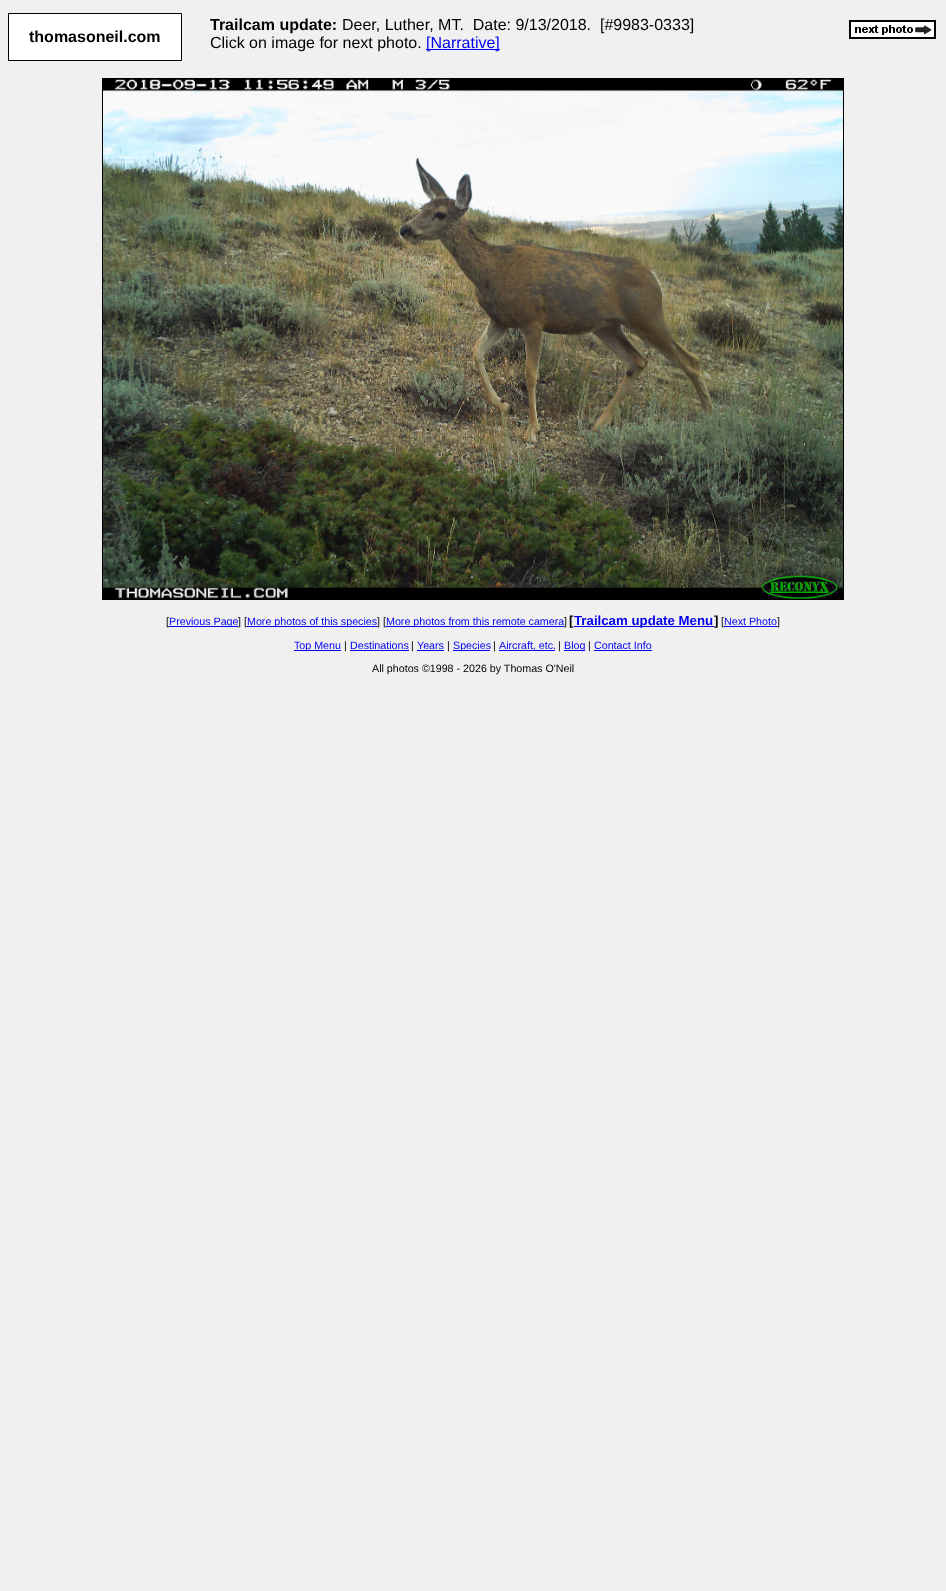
(async () => {
const canvas = document.querySelector("canvas")
canvas.width = 946
canvas.height = 1591
const c = canvas.getContext("2d")
c.miterLimit = 4
c.fontKerning = "normal"
function T(s,x,y){c.fillText(s,x,y)}
function R(x,y,w,h){c.fillRect(x,y,w,h)}
async function I(src,x,y,w,h){const img=new Image();img.src=src;await img.decode();c.drawImage(img,x,y,w,h)}
c.fillStyle="#f0f0f0"
R(0,0,946,1591)
c.fillStyle="#fff"
c.beginPath()
c.rect(8.5,13.5,173,47)
c.fill()
c.strokeStyle="#000"
c.stroke()
c.font="bold 16px Liberation Sans"
c.fillStyle="#000"
T("thomasoneil.com",29,42)
T("Trailcam update:",210,30)
c.font="16px Liberation Sans"
T("Deer, Luther, MT.  Date: 9/13/2018.  [#9983-0333]",342,30)
T("Click on image for next photo.",210,48)
c.fillStyle="#00e"
R(426,49,74,1)
T("[Narrative]",426,48)
c.strokeRect(849.5,20.5,86,18)
await I("1.png",850,21,85,17)
c.strokeRect(102.5,78.5,741,521)
await I("2.png",103,79,740,520)
c.font="10.7px Liberation Sans"
c.fillStyle="#000"
T("[",166,625)
c.fillStyle="#00e"
R(169,626,69,1)
T("Previous Page",169,625)
c.fillStyle="#000"
T("] [",238,625)
c.fillStyle="#00e"
R(247,626,130,1)
T("More photos of this species",247,625)
c.fillStyle="#000"
T("] [",377,625)
c.fillStyle="#00e"
R(386,626,178,1)
T("More photos from this remote camera",386,625)
c.fillStyle="#000"
T("]",564,625)
c.font="bold 13.25px Liberation Sans"
T("[",569,625)
c.fillStyle="#00e"
R(574,626,140,1)
T("Trailcam update Menu",574,625)
c.fillStyle="#000"
T("]",714,625)
c.font="10.7px Liberation Sans"
T("[",721,625)
c.fillStyle="#00e"
T("Next Photo",724,625)
R(724,626,53,1)
c.fillStyle="#000"
T("]",777,625)
c.fillStyle="#00e"
R(294,650,47,1)
T("Top Menu",294,649)
c.fillStyle="#000"
T("|",344,649)
c.fillStyle="#00e"
T("Destinations",350,649)
R(350,650,59,1)
c.fillStyle="#000"
T("|",411,649)
c.fillStyle="#00e"
T("Years",417,649)
R(417,650,27,1)
c.fillStyle="#000"
T("|",447,649)
c.fillStyle="#00e"
R(453,650,37,1)
T("Species",453,649)
c.fillStyle="#000"
T("|",493,649)
c.fillStyle="#00e"
R(499,650,56,1)
T("Aircraft, etc.",499,649)
c.fillStyle="#000"
T("|",558,649)
c.fillStyle="#00e"
R(564,650,21,1)
T("Blog",564,649)
c.fillStyle="#000"
T("|",588,649)
c.fillStyle="#00e"
T("Contact Info",594,649)
R(594,650,58,1)
c.fillStyle="#000"
T("All photos ©1998 - 2026 by Thomas O'Neil",372,672)
})()
